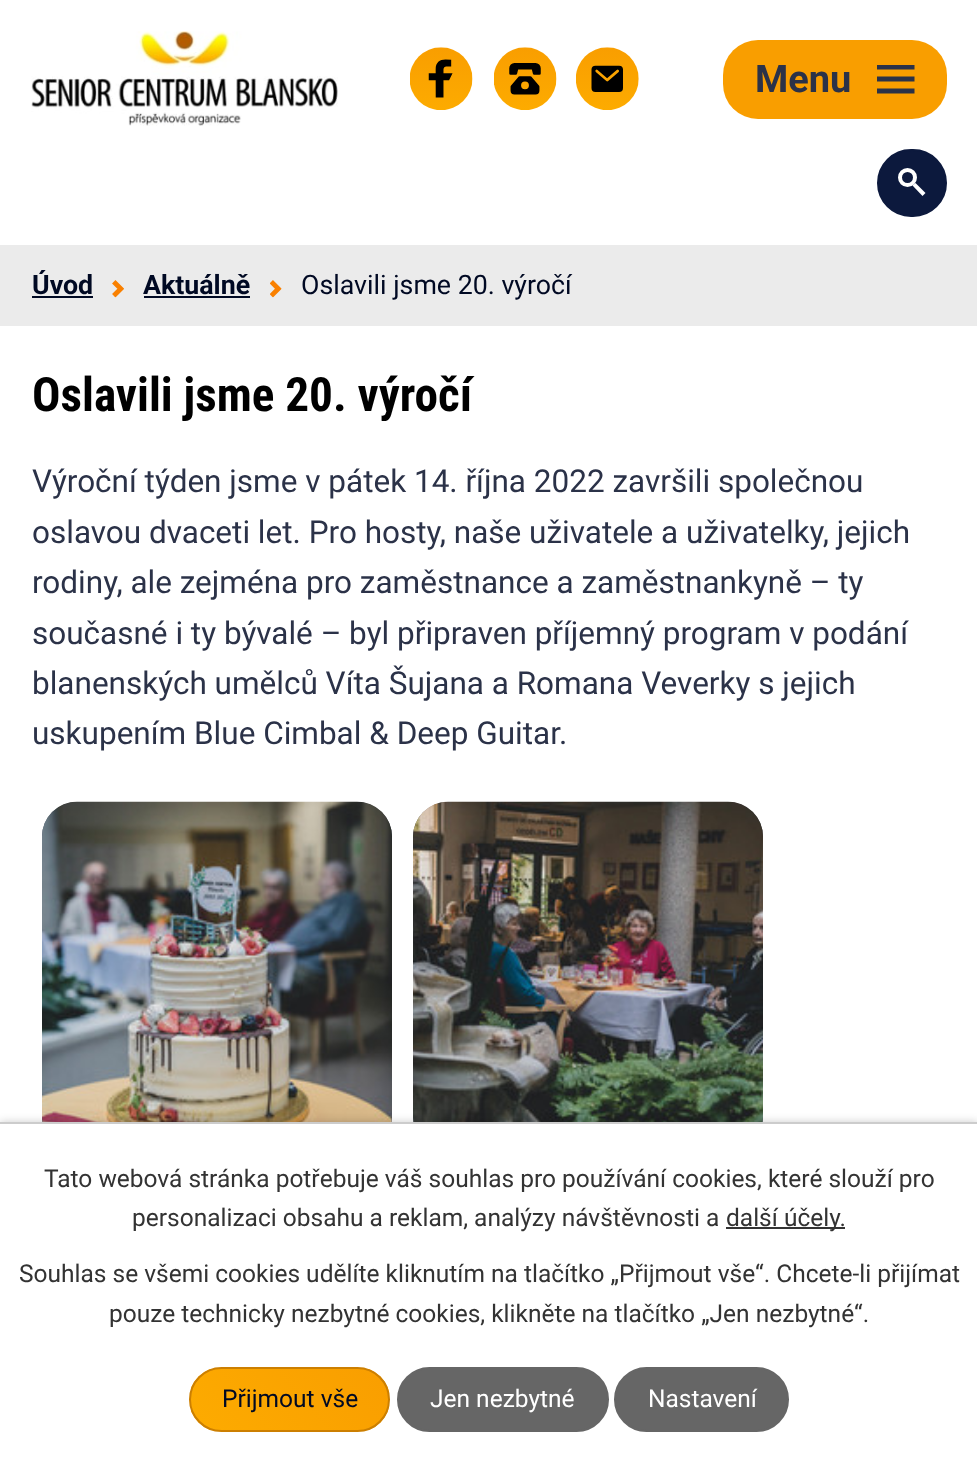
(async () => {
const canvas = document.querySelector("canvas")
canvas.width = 977
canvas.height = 1464
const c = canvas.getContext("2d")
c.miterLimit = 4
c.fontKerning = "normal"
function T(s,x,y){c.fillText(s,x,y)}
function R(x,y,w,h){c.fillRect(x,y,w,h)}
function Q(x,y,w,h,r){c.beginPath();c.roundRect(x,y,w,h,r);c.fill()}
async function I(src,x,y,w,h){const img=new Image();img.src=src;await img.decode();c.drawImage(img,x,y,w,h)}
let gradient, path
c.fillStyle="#fff"
R(0,0,977,1464)
await I("1.png",31,31,307,95)
await I("2.png",410,47,63,63)
await I("3.png",494,47,63,63)
await I("4.png",576,47,63,63)
c.fillStyle="#0c193d"
c.beginPath()
c.roundRect(878,150,68,66,33)
c.fill()
c.strokeStyle="#0c193d"
c.lineWidth=2
c.stroke()
c.beginPath()
c.arc(907.5,177.5,7.5,0,7)
c.strokeStyle="#fff"
c.lineWidth=4
c.stroke()
c.fillStyle="#fff"
path = new Path2D("M915.5 183l10 10l-3 3l-10-10.5z")
c.fill(path)
c.fillStyle="#f99e00"
Q(723,40,224,79,35)
c.font="bold 38px Roboto"
c.fillStyle="#2b3248"
T("Menu",755,92)
path = new Path2D("M877 93.5v-5h37.5v5zm0-28.5h37.5v4.5h-37.5zm0 16.5v-5h37.5v5z")
c.fill(path)
c.fillStyle="#ebebeb"
R(0,245,977,81)
c.font="bold 26.75px Roboto"
c.fillStyle="#000923"
T("Úvod",32,294)
R(32,296,61,2)
await I("5.png",112,280,12,18)
T("Aktuálně",143,294)
R(144,296,106,2)
await I("6.png",270,280,12,18)
c.font="26.75px Roboto"
T("Oslavili jsme 20. výročí",301,294)
c.font="bold 47.25px Roboto Condensed"
c.fillStyle="#000"
T("Oslavili jsme 20. výročí",32,411)
c.font="31.5px Roboto"
c.fillStyle="#2b3248"
T("Výroční týden jsme v pátek 14. října 2022 završili společnou",32,492)
T("oslavou dvaceti let. Pro hosty, naše uživatele a uživatelky, jejich",32,543)
T("rodiny, ale zejména pro zaměstnance a zaměstnankyně – ty",32,593)
T("současné i ty bývalé – byl připraven příjemný program v podání",32,644)
T("blanenských umělců Víta Šujana a Romana Veverky s jejich",32,694)
T("uskupením Blue Cimbal & Deep Guitar.",32,744)
Q(42,802,350,350,35)
await I("7.png",42,801,350,321)
Q(413,802,350,350,35)
await I("8.png",413,801,350,321)
c.fillStyle="#00000033"
c.filter="blur(4.5px)"
c.beginPath()
c.rect(0,1122,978,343)
c.fill()
c.filter="none"
c.fillStyle="#fff"
R(0,1124,977,340)
c.fillStyle="#ccc"
R(0,1122,977,2)
c.font="24.5px Roboto"
c.fillStyle="#333"
T("Tato webová stránka potřebuje váš souhlas pro používání cookies, které slouží pro",44,1187)
T("personalizaci obsahu a reklam, analýzy návštěvnosti a",132,1226)
R(726,1227,119,2)
T("další účely.",726,1226)
T("Souhlas se všemi cookies udělíte kliknutím na tlačítko „Přijmout vše“. Chcete-li přijímat",19,1282)
T("pouze technicky nezbytné cookies, klikněte na tlačítko „Jen nezbytné“.",109,1322)
c.save()
c.beginPath()
c.roundRect(189,1367,201,65,32.5)
c.clip()
gradient = c.createLinearGradient(361,1337,218,1461)
gradient.addColorStop(0,"#f99e00")
gradient.addColorStop(1,"#fdab00")
c.fillStyle = gradient
R(191,1369,198,61)
c.restore()
c.beginPath()
c.roundRect(190,1368,199,63,31.5)
c.strokeStyle="#cc7f01"
c.lineWidth=2
c.stroke()
c.fillStyle="#000923"
T("Přijmout vše",222,1407)
c.fillStyle="#666"
c.beginPath()
c.roundRect(398,1368,210,63,31.5)
c.fill()
c.strokeStyle="#666"
c.stroke()
c.fillStyle="#fff"
T("Jen nezbytné",430,1407)
c.fillStyle="#666"
c.beginPath()
c.roundRect(615,1368,173,63,31.5)
c.fill()
c.stroke()
c.fillStyle="#fff"
T("Nastavení",648,1407)
})()
